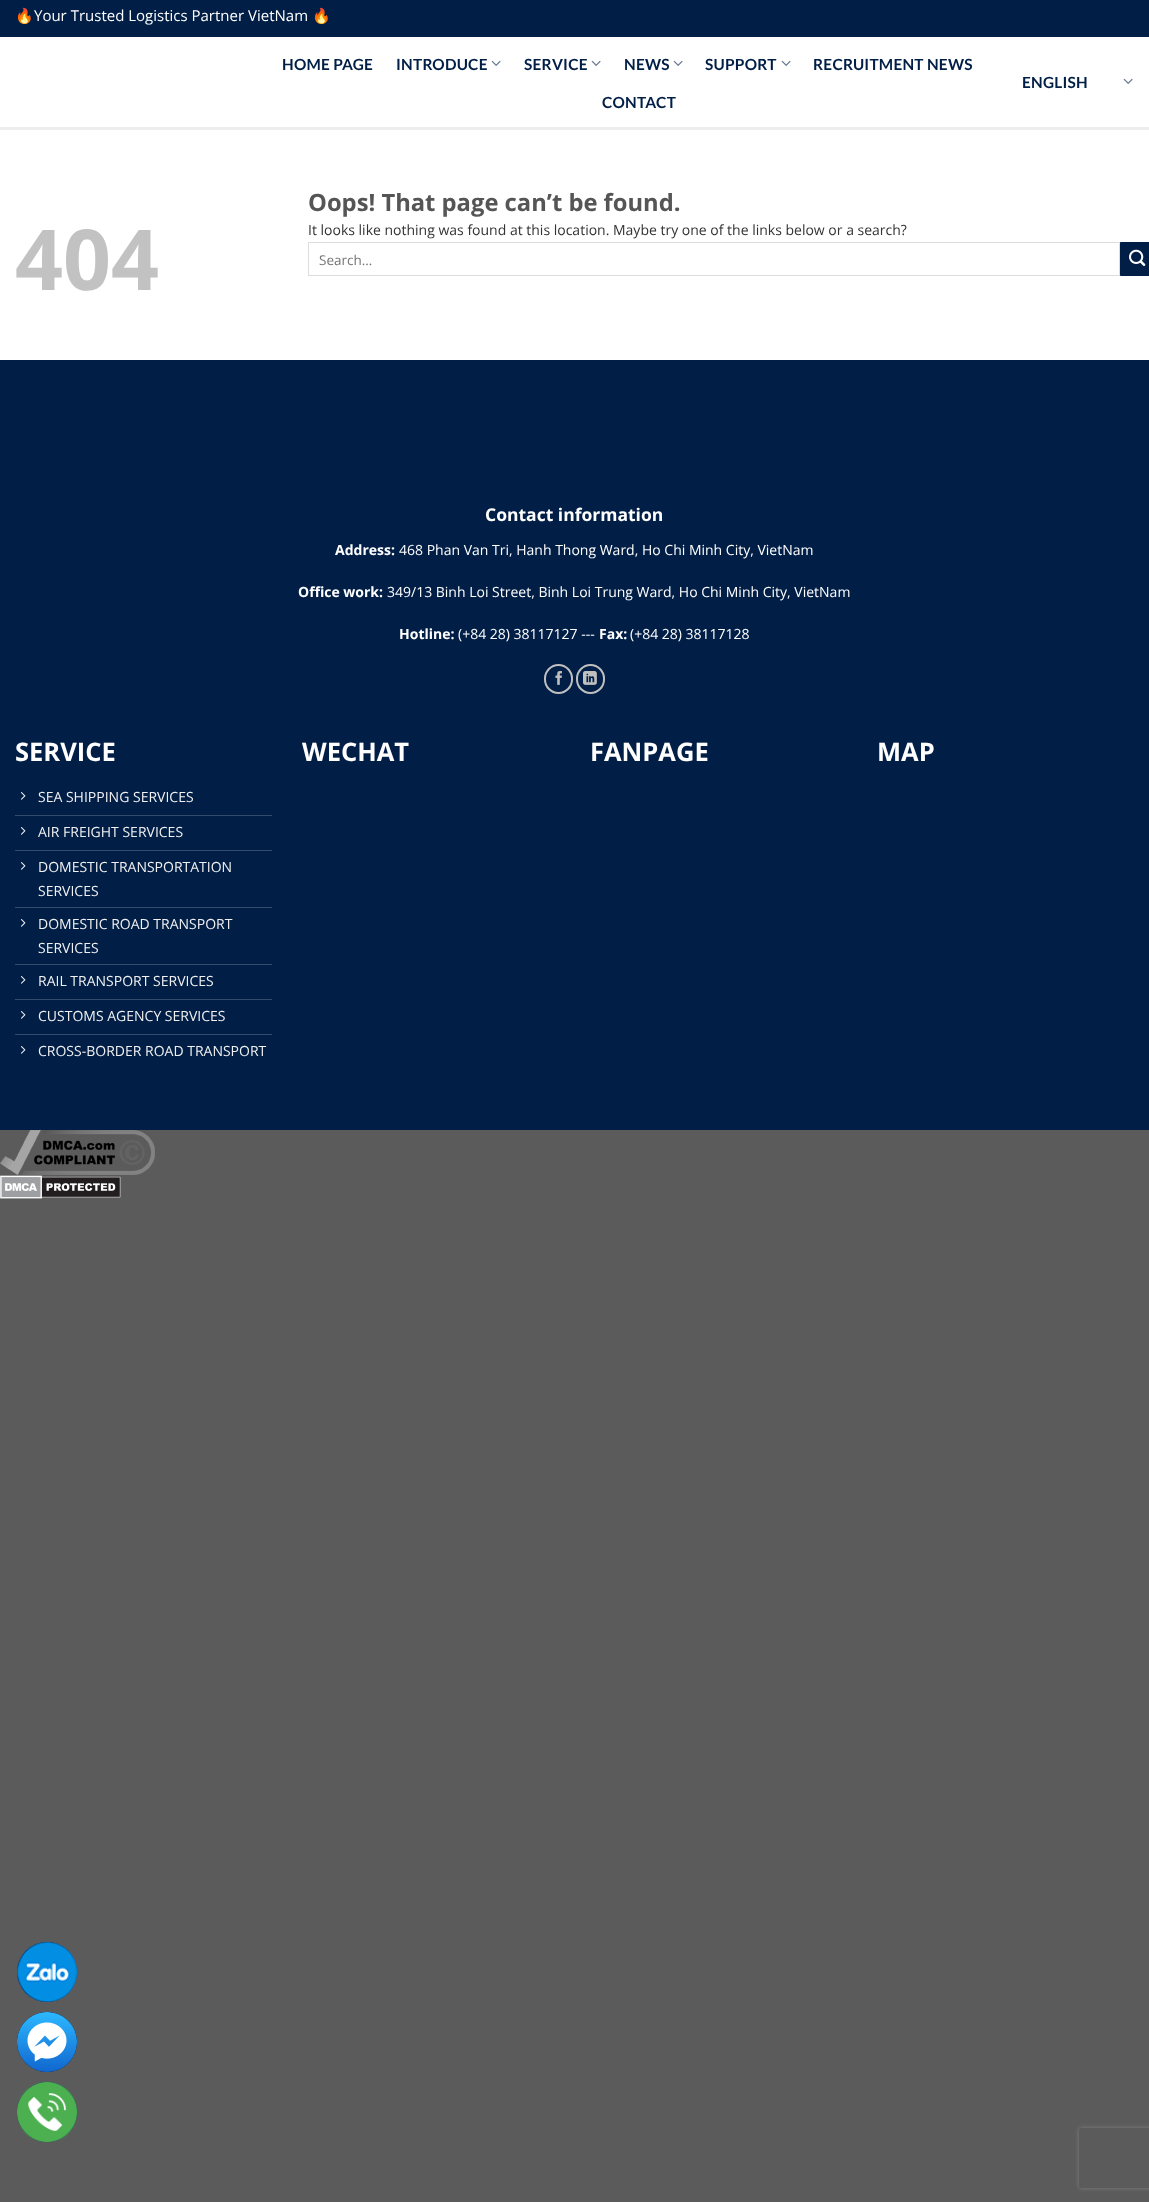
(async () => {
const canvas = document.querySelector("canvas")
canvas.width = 1149
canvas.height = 2202
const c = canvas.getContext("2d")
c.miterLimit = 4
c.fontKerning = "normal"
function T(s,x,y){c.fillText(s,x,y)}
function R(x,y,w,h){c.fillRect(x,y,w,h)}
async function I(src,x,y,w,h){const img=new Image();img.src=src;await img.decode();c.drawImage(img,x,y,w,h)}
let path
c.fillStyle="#5b5b5b"
R(0,0,1149,2202)
c.fillStyle="#fff"
R(0,37,1149,323)
c.fillStyle="#eee"
path = new Path2D("M-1 34v96h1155v-96zm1 3v90h1149v-90z")
c.fill(path,"evenodd")
c.fillStyle="#001e46"
R(0,0,1149,37)
c.font="15px Noto Color Emoji"
c.fillStyle="#fff"
T("🔥",15,21)
c.font="15px Open Sans"
T("Your Trusted Logistics Partner VietNam",34,21)
c.font="15px Noto Color Emoji"
T("🔥",312,21)
c.letterSpacing="0.25px"
c.font="bold 15.4px Lato"
c.fillStyle="#001e46"
T("HOME PAGE",282,70)
T("INTRODUCE",396,70)
await I("1.png",491,60,10,6)
T("SERVICE",524,70)
await I("1.png",591,60,10,6)
T("NEWS",624,70)
await I("1.png",673,60,10,6)
T("SUPPORT",705,70)
await I("1.png",781,60,10,6)
T("RECRUITMENT NEWS",813,70)
T("CONTACT",602,108)
T("ENGLISH",1022,88)
await I("1.png",1123,78,10,6)
c.letterSpacing="0px"
c.font="bold 84px Open Sans"
c.fillStyle="#c2c2c2"
T("404",15,290)
c.font="bold 23.75px Open Sans"
c.fillStyle="#555"
T("Oops! That page can’t be found.",308,211)
c.font="14px Open Sans"
c.fillStyle="#333"
T("It looks like nothing was found at this location. Maybe try one of the links below or a search?",308,235)
c.strokeStyle="#ddd"
c.strokeRect(308.5,242.5,811,33)
c.font="13.5px Open Sans"
c.fillStyle="#757575"
T("Search…",319,265)
c.fillStyle="#001e46"
c.beginPath()
c.rect(1120.5,242.5,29,33)
c.fill()
c.strokeStyle="#001d43"
c.stroke()
await I("2.png",1129,249,17,17)
R(0,360,1149,770)
c.font="bold 17.5px Open Sans"
c.fillStyle="#fff"
T("Contact information",485,521)
c.font="bold 14px Open Sans"
T("Address:",335,555)
c.font="14px Open Sans"
T("468 Phan Van Tri, Hanh Thong Ward, Ho Chi Minh City, VietNam",399,555)
c.font="bold 14px Open Sans"
T("Office work:",298,597)
c.font="14px Open Sans"
T("349/13 Binh Loi Street, Binh Loi Trung Ward, Ho Chi Minh City, VietNam",387,597)
c.font="bold 14px Open Sans"
T("Hotline:",399,639)
c.font="14px Open Sans"
T("(+84 28) 38117127 ---",458,639)
c.font="bold 14px Open Sans"
T("Fax:",599,639)
c.font="14px Open Sans"
T("(+84 28) 38117128",630,639)
c.beginPath()
c.roundRect(545,665,27,28,13.5)
c.strokeStyle="#c0c0c0"
c.lineWidth=2
c.stroke()
await I("3.png",555,671,7,14)
c.beginPath()
c.roundRect(577,665,27,28,13.5)
c.stroke()
await I("4.png",583,671,14,14)
c.font="bold 25.5px Open Sans"
T("SERVICE",15,761)
c.fillStyle="#334b6b"
R(15,815,257,1)
await I("5.png",20,792,6,8)
c.font="14px Open Sans"
c.fillStyle="#f1f1f1"
T("SEA SHIPPING SERVICES",38,802)
c.fillStyle="#334b6b"
R(15,850,257,1)
await I("5.png",20,827,6,8)
c.fillStyle="#f1f1f1"
T("AIR FREIGHT SERVICES",38,837)
c.fillStyle="#334b6b"
R(15,907,257,1)
await I("5.png",20,862,6,8)
c.fillStyle="#f1f1f1"
T("DOMESTIC TRANSPORTATION",38,872)
T("SERVICES",38,896)
c.fillStyle="#334b6b"
R(15,964,257,1)
await I("5.png",20,919,6,8)
c.fillStyle="#f1f1f1"
T("DOMESTIC ROAD TRANSPORT",38,929)
T("SERVICES",38,953)
c.fillStyle="#334b6b"
R(15,999,257,1)
await I("5.png",20,976,6,8)
c.fillStyle="#f1f1f1"
T("RAIL TRANSPORT SERVICES",38,986)
c.fillStyle="#334b6b"
R(15,1034,257,1)
await I("5.png",20,1011,6,8)
c.fillStyle="#f1f1f1"
T("CUSTOMS AGENCY SERVICES",38,1021)
await I("5.png",20,1046,6,8)
T("CROSS-BORDER ROAD TRANSPORT",38,1056)
c.font="bold 25.5px Open Sans"
c.fillStyle="#fff"
T("WECHAT",302,761)
T("FANPAGE",590,761)
T("MAP",877,761)
await I("6.png",0,1130,155,45)
await I("7.png",0,1175,121,24)
c.fillStyle="#00316c"
c.beginPath()
c.arc(47,1972,30,0,7)
c.fill()
await I("8.png",17,1942,60,60)
c.beginPath()
c.arc(47,2042,30,0,7)
c.fill()
await I("9.png",17,2012,60,60)
c.beginPath()
c.arc(47,2112,30,0,7)
c.fill()
await I("10.png",17,2082,60,60)
c.save()
path = new Path2D("M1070 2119h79v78h-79zm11 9h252c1 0 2 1 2 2v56c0 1-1 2-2 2h-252c-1 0-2-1-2-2v-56c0-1 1-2 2-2z")
c.clip(path,"evenodd")
c.fillStyle="#808080"
c.filter="blur(2.5px)"
c.beginPath()
c.roundRect(1079,2128,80,60,2)
c.fill()
c.filter="none"
c.restore()
})()
